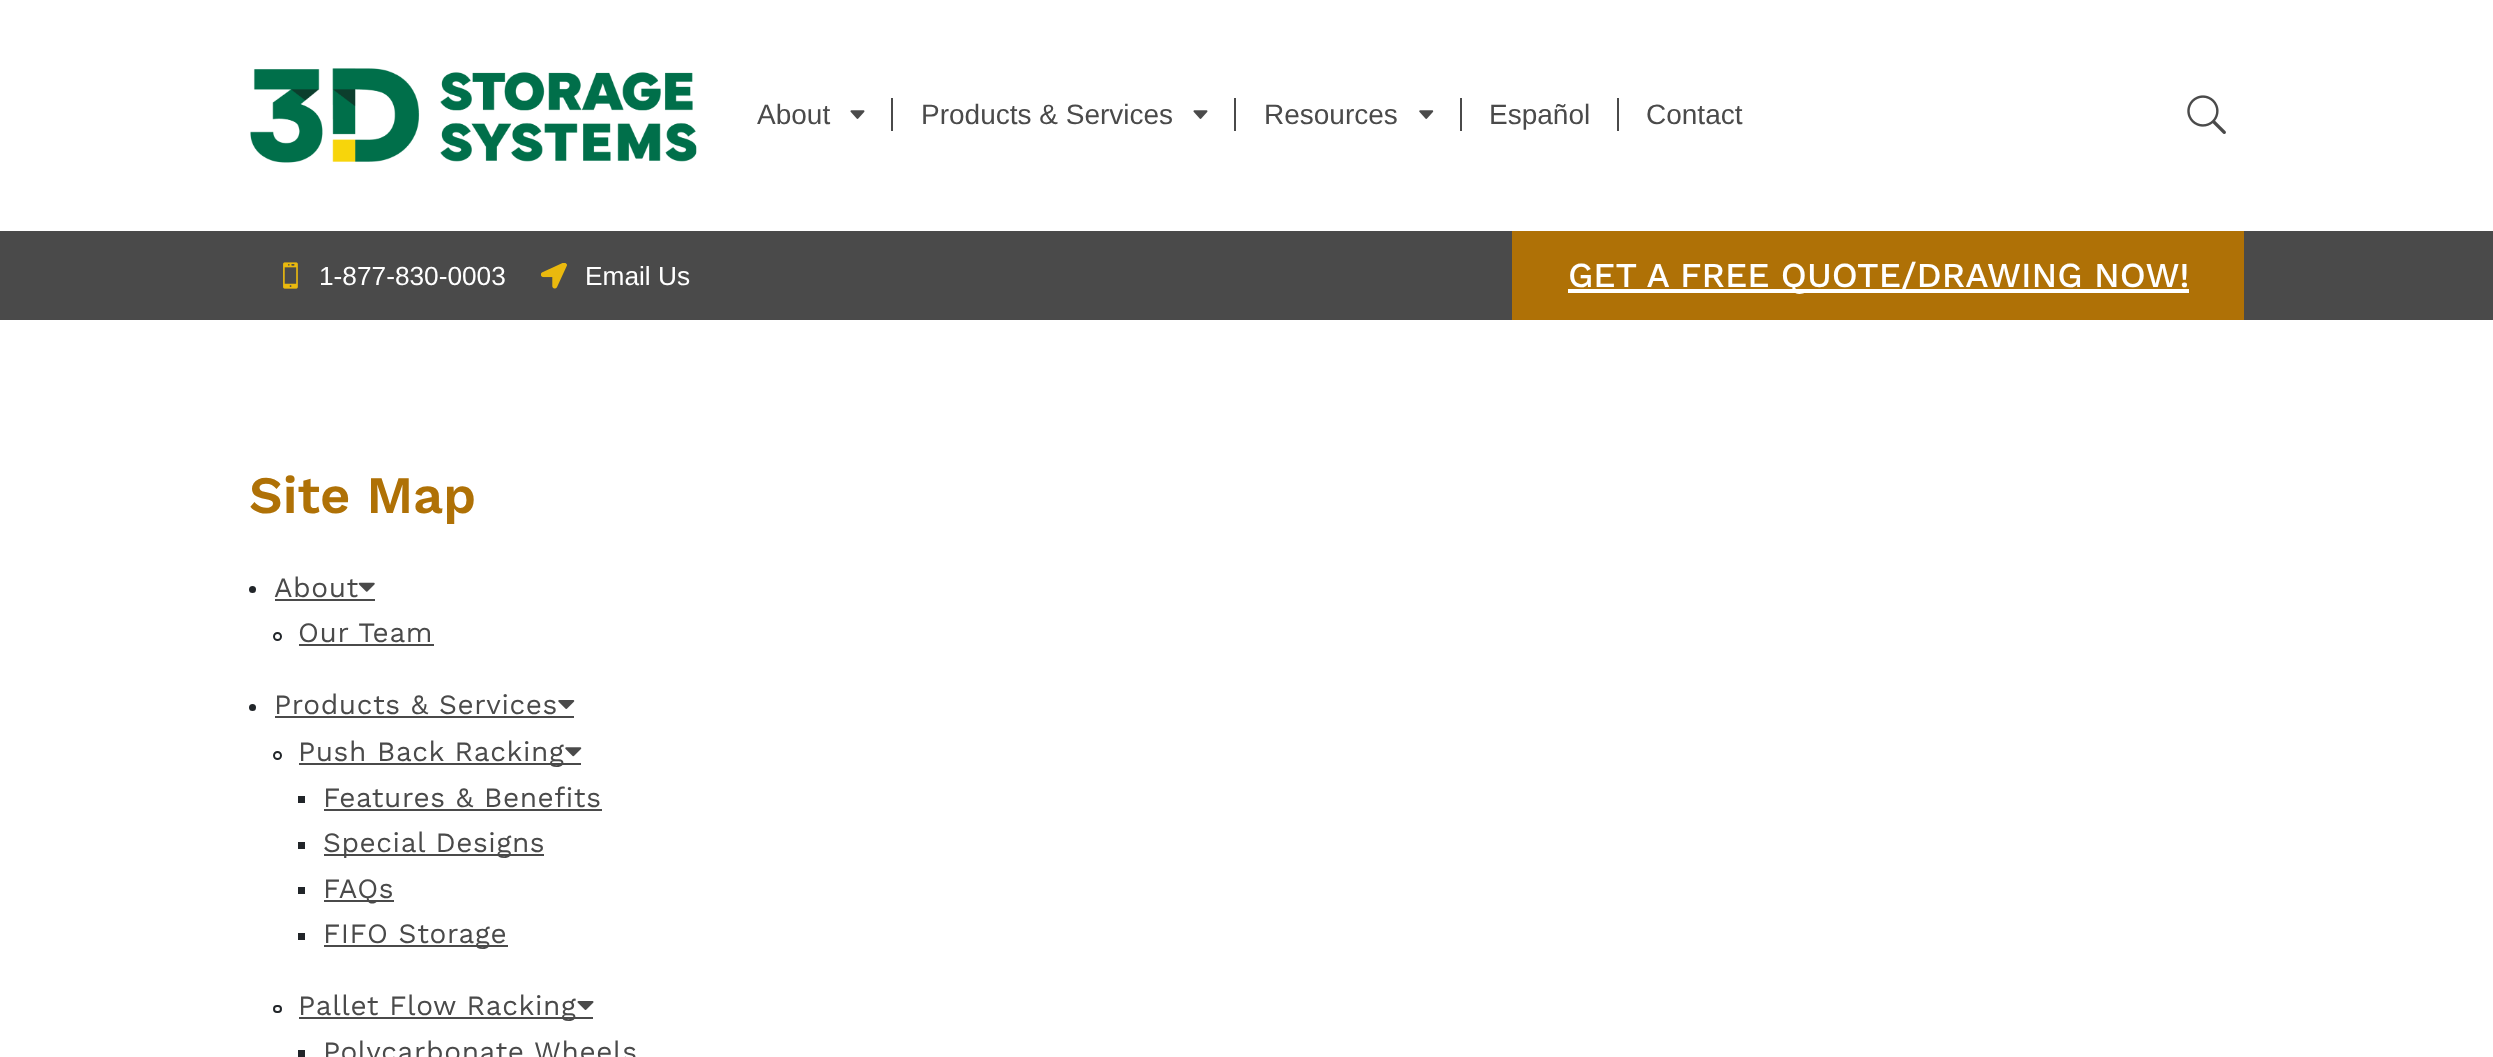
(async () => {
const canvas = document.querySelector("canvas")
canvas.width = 2493
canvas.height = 1057
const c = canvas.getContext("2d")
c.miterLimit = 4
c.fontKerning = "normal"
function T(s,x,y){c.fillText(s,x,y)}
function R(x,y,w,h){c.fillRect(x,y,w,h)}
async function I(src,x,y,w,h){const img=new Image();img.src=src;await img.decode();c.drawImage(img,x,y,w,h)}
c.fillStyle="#fff"
R(0,0,2493,1057)
await I("1.png",250,68,447,95)
c.font="28px Liberation Sans"
c.fillStyle="#4a4a4a"
T("About",757,124)
await I("2.png",850,110,15,9)
R(891,98,2,33)
T("Products & Services",921,124)
await I("2.png",1193,110,15,9)
R(1234,98,2,33)
T("Resources",1264,124)
await I("3.png",1419,110,15,9)
R(1460,98,2,33)
T("Español",1489,124)
R(1617,98,2,33)
T("Contact",1646,124)
await I("4.png",2187,95,39,39)
R(0,231,2493,89)
await I("5.png",283,262,15,27)
c.font="26.25px Liberation Sans"
c.fillStyle="#fff"
T("1-877-830-0003",319,285)
await I("6.png",541,263,26,26)
T("Email Us",585,285)
c.fillStyle="#af7106"
R(1512,231,732,89)
c.fillStyle="#fff"
R(1568,289,621,4)
c.font="500 35px Work Sans"
T("GET A FREE QUOTE/DRAWING NOW!",1568,287)
c.font="600 52.5px Work Sans"
c.fillStyle="#af7106"
T("Site Map",249,513)
c.fillStyle="#212529"
c.beginPath()
c.arc(252.5,589.5,3.5,0,7)
c.fill()
c.letterSpacing="0.6px"
c.font="28px Work Sans"
c.fillStyle="#4a4a4a"
T("About",274,597)
R(275,599,100,2)
await I("7.png",358,582,17,10)
c.beginPath()
c.arc(277.5,636.5,3.5,0,7)
c.strokeStyle="#212529"
c.lineWidth=2
c.stroke()
T("Our Team",298,642)
R(299,644,135,2)
c.fillStyle="#212529"
c.beginPath()
c.arc(252.5,707.5,3.5,0,7)
c.fill()
c.fillStyle="#4a4a4a"
T("Products & Services",274,714)
R(275,716,299,2)
await I("8.png",558,700,17,9)
c.beginPath()
c.arc(277.5,755.5,3.5,0,7)
c.stroke()
R(299,763,282,2)
T("Push Back Racking",298,761)
await I("9.png",565,747,17,10)
c.fillStyle="#212529"
R(298,796,7,7)
c.fillStyle="#4a4a4a"
T("Features & Benefits",323,807)
R(324,809,278,2)
c.fillStyle="#212529"
R(298,842,7,7)
c.fillStyle="#4a4a4a"
R(324,854,220,2)
T("Special Designs",323,852)
c.fillStyle="#212529"
R(298,887,7,7)
c.fillStyle="#4a4a4a"
R(324,900,70,2)
T("FAQs",323,898)
c.fillStyle="#212529"
R(298,933,7,7)
c.fillStyle="#4a4a4a"
R(324,945,184,2)
T("FIFO Storage",323,943)
c.beginPath()
c.roundRect(274,1006,7,6,3)
c.stroke()
R(299,1017,294,2)
T("Pallet Flow Racking",298,1015)
await I("10.png",577,1001,17,9)
c.fillStyle="#212529"
R(298,1050,7,7)
c.fillStyle="#4a4a4a"
T("Polycarbonate Wheels",323,1061)
})()
